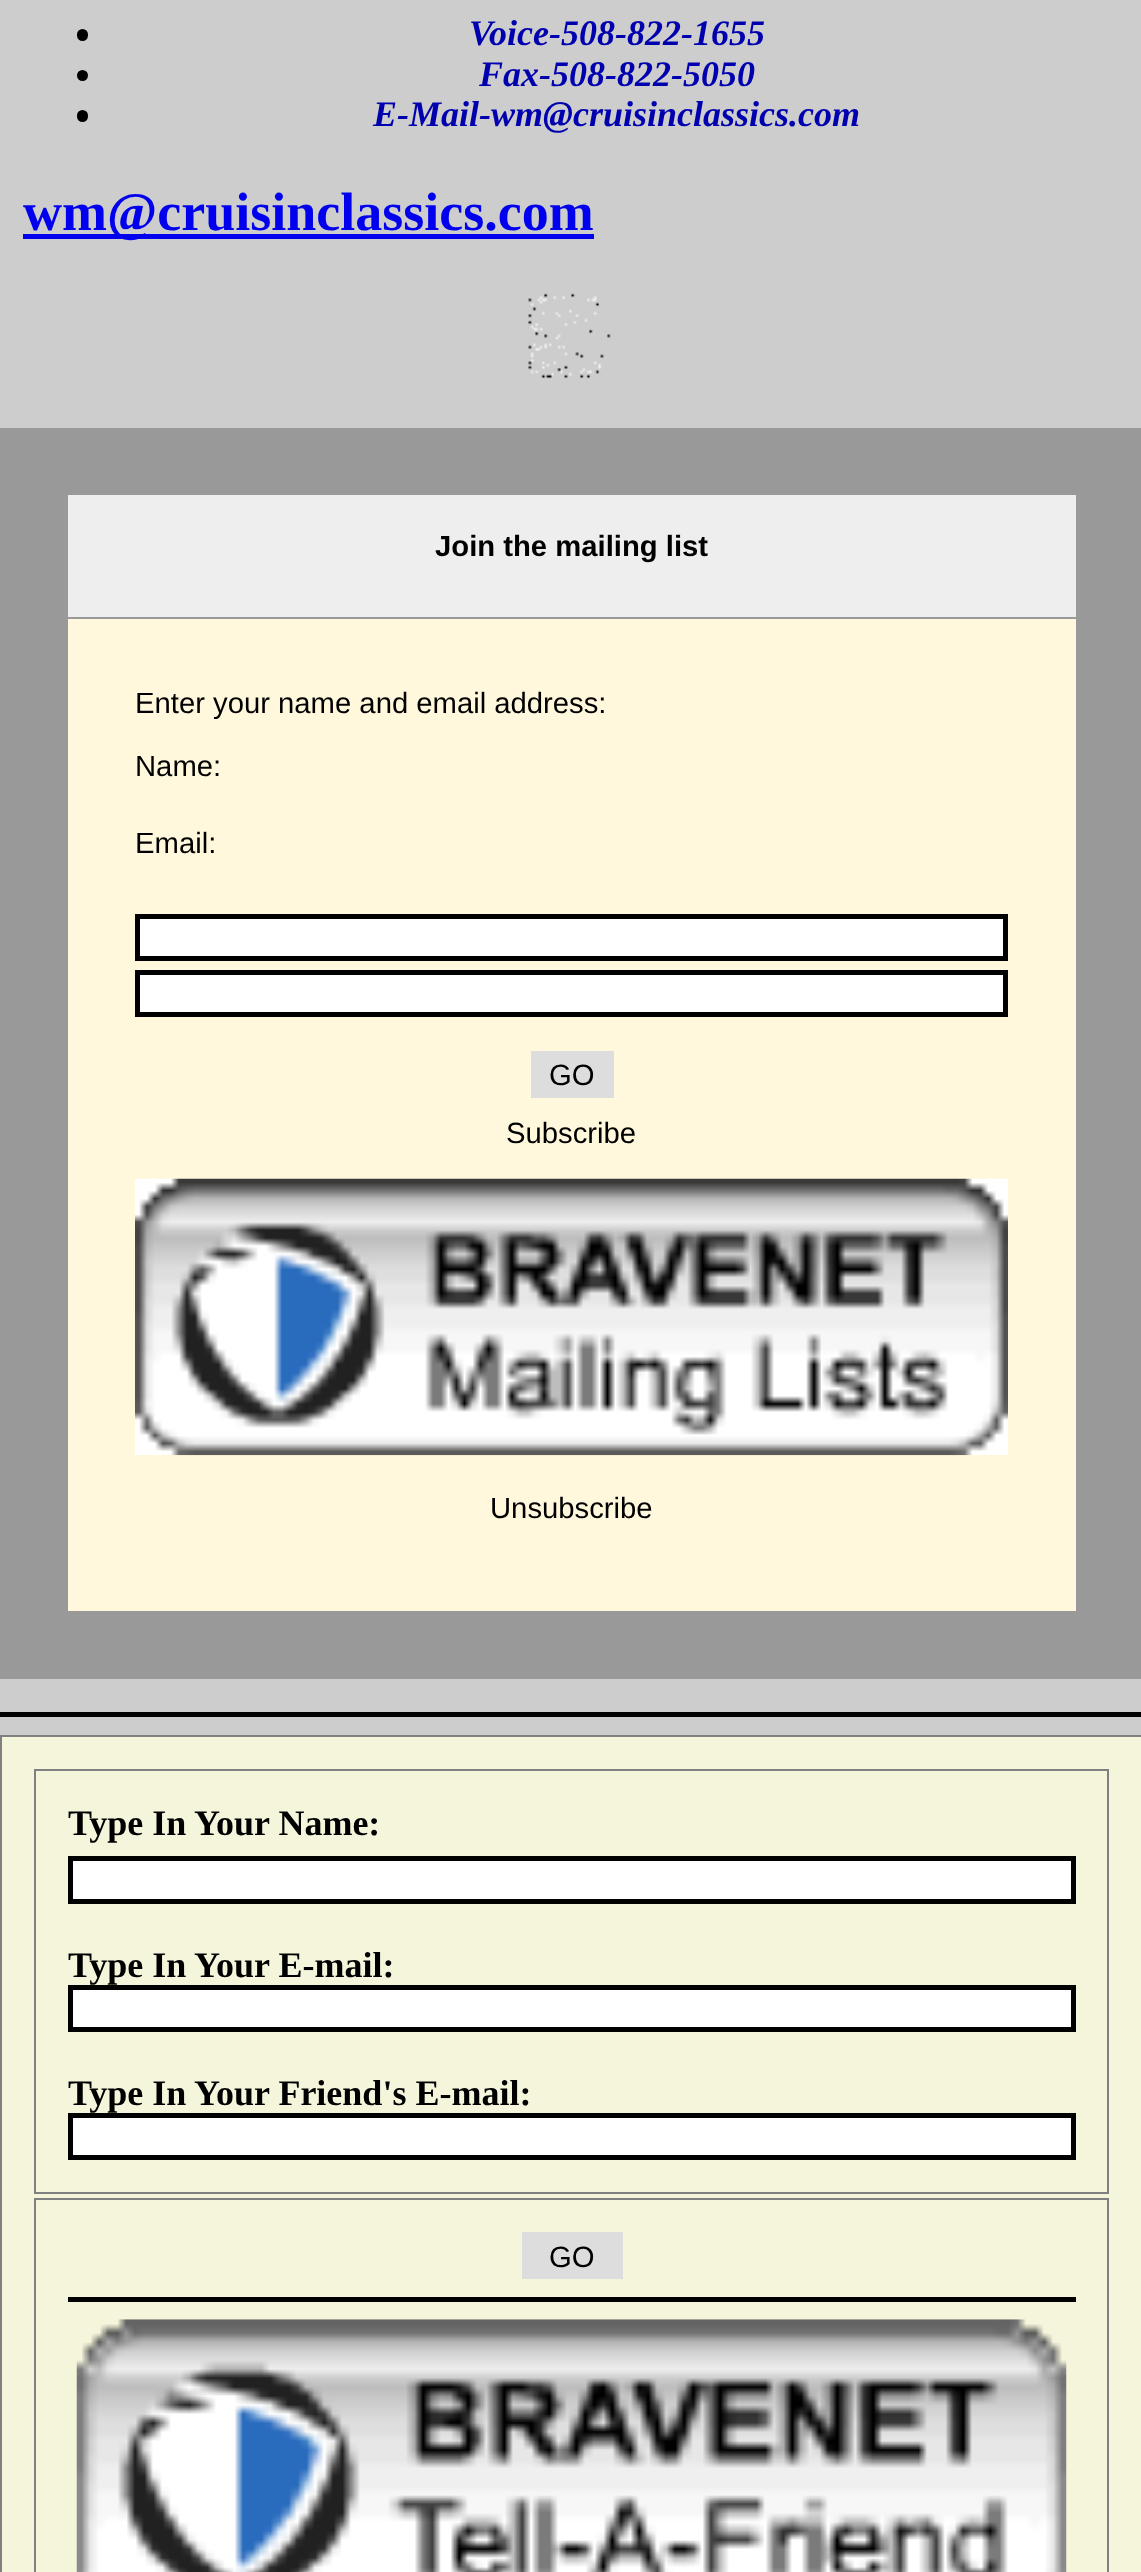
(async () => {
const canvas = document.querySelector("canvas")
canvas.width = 1141
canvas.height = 2572
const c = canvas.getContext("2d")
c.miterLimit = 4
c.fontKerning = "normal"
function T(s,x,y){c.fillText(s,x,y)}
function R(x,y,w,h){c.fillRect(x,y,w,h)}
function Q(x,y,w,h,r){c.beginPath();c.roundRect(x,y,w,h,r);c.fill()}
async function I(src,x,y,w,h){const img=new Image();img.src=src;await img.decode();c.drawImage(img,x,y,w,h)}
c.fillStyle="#cdcdcd"
R(0,0,1141,2572)
c.fillStyle="#000"
Q(77,29,11,12,5.5)
c.font="italic bold 36px Liberation Serif"
c.fillStyle="#0000af"
T("Voice-508-822-1655",469,45)
c.fillStyle="#000"
c.beginPath()
c.arc(82.5,75.5,5.5,0,7)
c.fill()
c.fillStyle="#0000af"
T("Fax-508-822-5050",479,86)
c.fillStyle="#000"
Q(77,110,11,12,5.5)
c.fillStyle="#0000af"
T("E-Mail-wm@cruisinclassics.com",373,126)
c.fillStyle="#00e"
R(23,234,571,5)
c.font="bold 54px Liberation Serif"
T("wm@cruisinclassics.com",23,230)
await I("1.png",528,293,83,86)
c.fillStyle="#999"
R(0,428,1141,1251)
c.fillStyle="#eee"
R(68,495,1008,122)
c.font="bold 29.25px Liberation Sans"
c.fillStyle="#000"
T("Join the mailing list",435,556)
c.fillStyle="#fff8dc"
R(68,619,1008,992)
c.font="29.25px Liberation Sans"
c.fillStyle="#000"
T("Enter your name and email address:",135,713)
T("Name:",135,776)
T("Email:",135,853)
c.fillStyle="#fff"
c.beginPath()
c.rect(137.5,916.5,868,42)
c.fill()
c.strokeStyle="#000"
c.lineWidth=5
c.stroke()
c.beginPath()
c.rect(137.5,972.5,868,42)
c.fill()
c.stroke()
c.fillStyle="#ddd"
R(531,1051,83,47)
c.fillStyle="#000"
T("GO",549,1085)
T("Subscribe",506,1143)
await I("2.png",135,1178,873,278)
T("Unsubscribe",490,1518)
R(0,1712,1141,5)
c.fillStyle="#f5f5dc"
c.beginPath()
c.rect(1,1736,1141,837)
c.fill()
c.strokeStyle="#808080"
c.lineWidth=2
c.stroke()
c.strokeRect(35,1770,1073,423)
c.font="bold 36px Liberation Serif"
c.fillStyle="#000"
T("Type In Your Name:",68,1835)
c.fillStyle="#fff"
c.beginPath()
c.rect(70.5,1858.5,1003,43)
c.fill()
c.strokeStyle="#000"
c.lineWidth=5
c.stroke()
c.fillStyle="#000"
T("Type In Your E-mail:",68,1977)
c.fillStyle="#fff"
c.beginPath()
c.rect(70.5,1987.5,1003,42)
c.fill()
c.stroke()
c.fillStyle="#000"
T("Type In Your Friend's E-mail:",68,2105)
c.fillStyle="#fff"
c.beginPath()
c.rect(70.5,2115.5,1003,42)
c.fill()
c.stroke()
c.strokeStyle="#808080"
c.lineWidth=2
c.strokeRect(35,2199,1073,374)
c.fillStyle="#ddd"
R(522,2232,101,47)
c.font="29.25px Liberation Sans"
c.fillStyle="#000"
T("GO",549,2267)
R(68,2297,1008,5)
await I("3.png",76,2319,991,253)
})()
